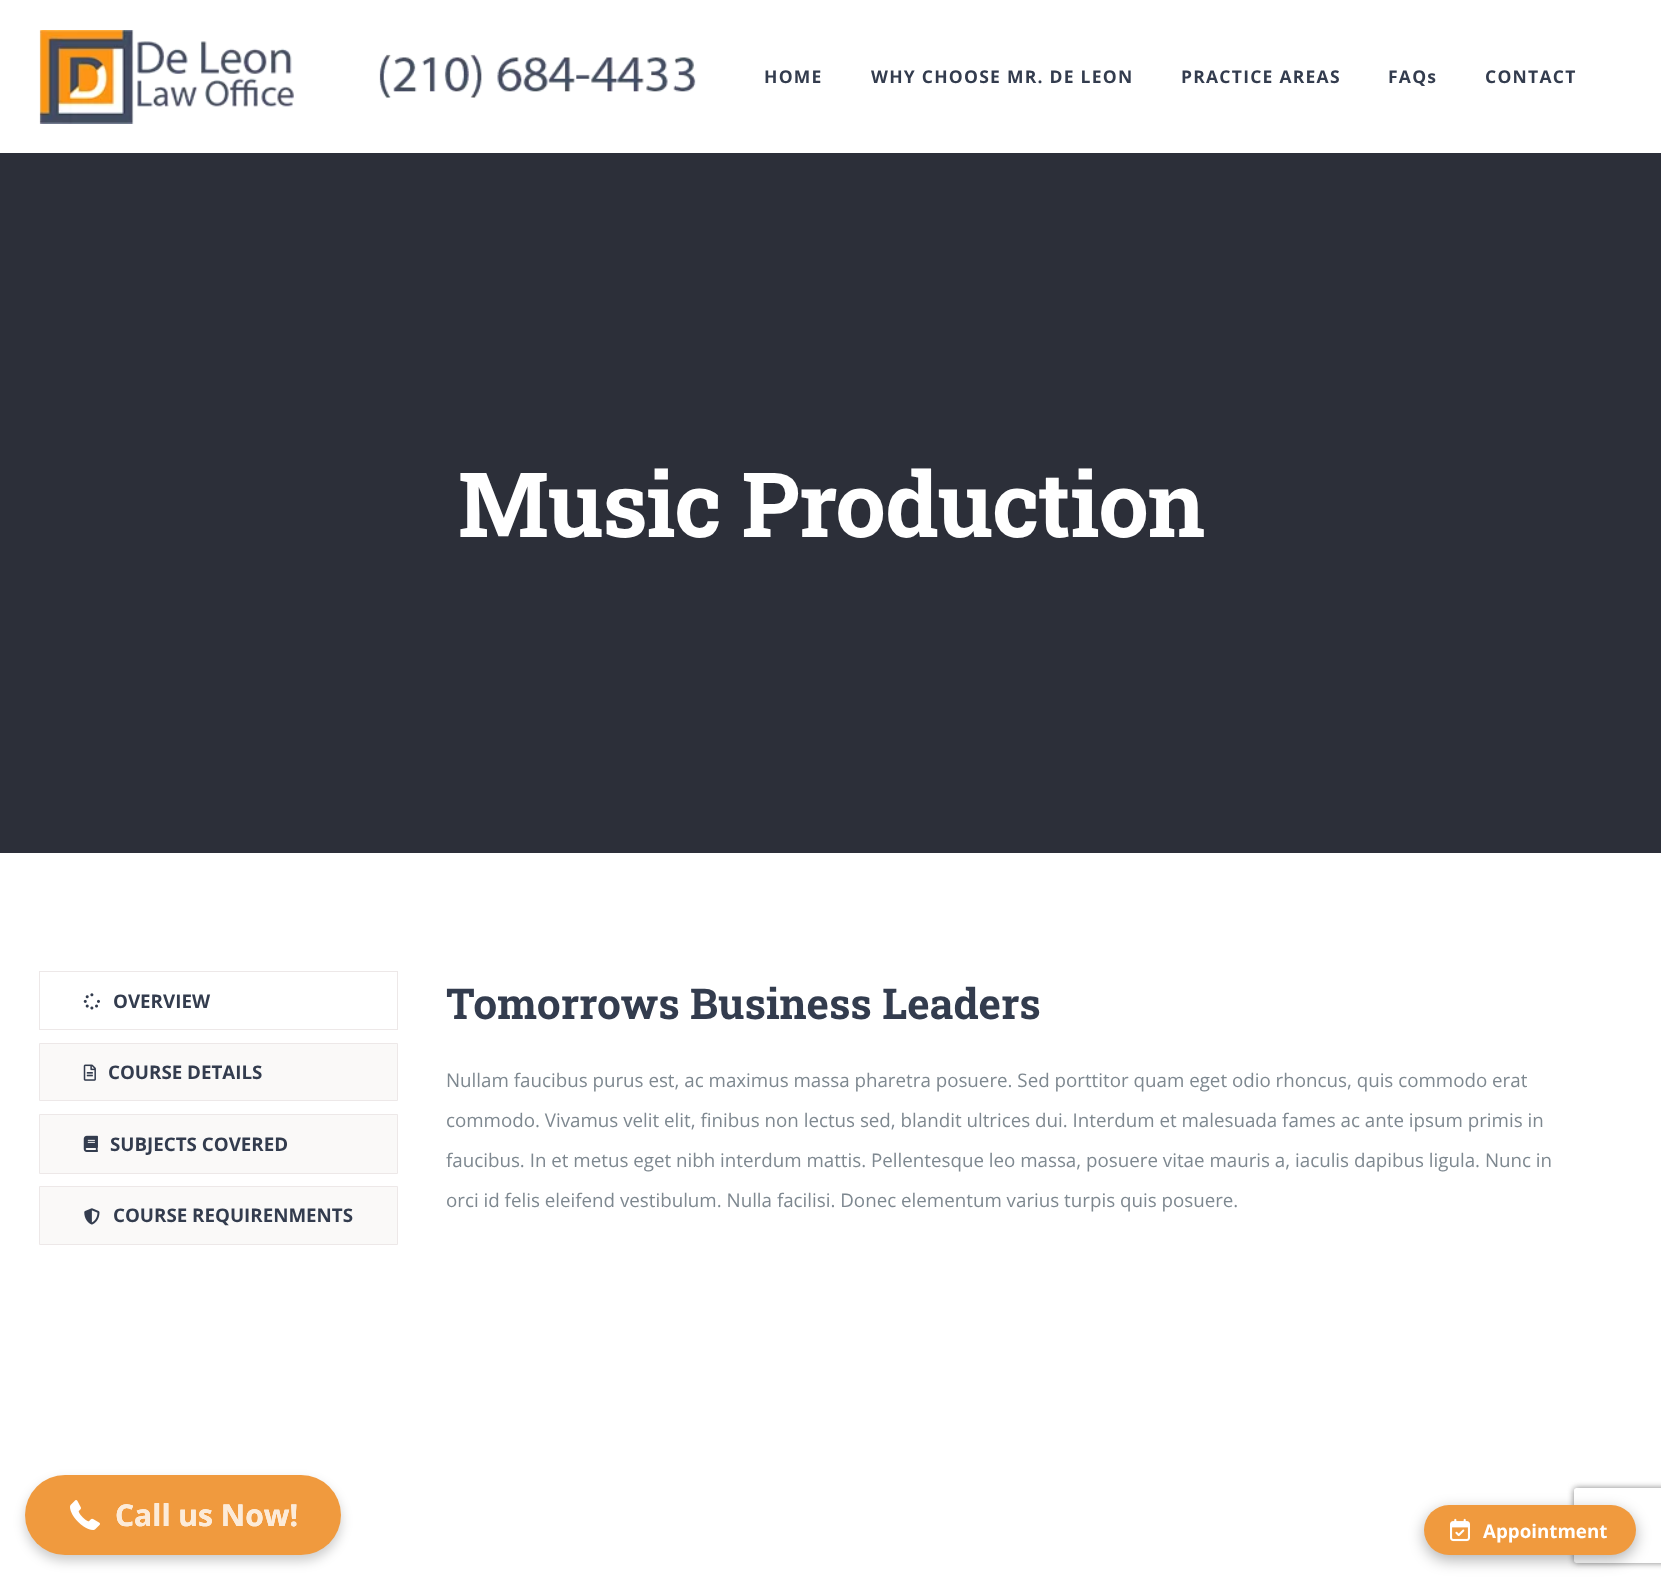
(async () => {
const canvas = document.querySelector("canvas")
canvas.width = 1661
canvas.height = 1579
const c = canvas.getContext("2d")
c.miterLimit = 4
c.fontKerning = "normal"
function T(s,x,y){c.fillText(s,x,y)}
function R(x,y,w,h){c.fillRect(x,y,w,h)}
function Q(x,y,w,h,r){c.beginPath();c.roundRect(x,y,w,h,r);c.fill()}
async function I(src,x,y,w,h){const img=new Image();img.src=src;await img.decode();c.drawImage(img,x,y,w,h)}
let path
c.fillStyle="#fff"
R(0,0,1661,1579)
await I("1.png",39,30,657,94)
c.letterSpacing="1.25px"
c.font="bold 17.5px Open Sans"
c.fillStyle="#333c4e"
T("HOME",764,83)
T("WHY CHOOSE MR. DE LEON",871,83)
T("PRACTICE AREAS",1181,83)
T("FAQs",1388,83)
T("CONTACT",1485,83)
c.fillStyle="#2c2f39"
R(0,153,1661,700)
c.letterSpacing="-1.25px"
c.font="bold 90px Roboto Slab"
c.fillStyle="#fff"
T("Music Production",458,537)
c.strokeStyle="#ede8e8"
c.strokeRect(39.5,971.5,358,58)
await I("2.png",83,993,17,17)
c.letterSpacing="0px"
c.font="bold 18.75px Open Sans"
c.fillStyle="#333c4e"
T("OVERVIEW",113,1008)
c.fillStyle="#faf9f8"
c.beginPath()
c.rect(39.5,1043.5,358,57)
c.fill()
c.stroke()
await I("3.png",83,1064,13,17)
c.fillStyle="#333c4e"
T("COURSE DETAILS",108,1079)
c.fillStyle="#faf9f8"
c.beginPath()
c.rect(39.5,1114.5,358,59)
c.fill()
c.stroke()
await I("4.png",83,1135,15,17)
c.fillStyle="#333c4e"
T("SUBJECTS COVERED",110,1151)
c.fillStyle="#faf9f8"
c.beginPath()
c.rect(39.5,1186.5,358,58)
c.fill()
c.stroke()
await I("5.png",84,1208,16,17)
c.fillStyle="#333c4e"
T("COURSE REQUIRENMENTS",113,1222)
c.font="bold 42.5px Roboto Slab"
T("Tomorrows Business Leaders",446,1019)
c.font="18.75px Open Sans"
c.fillStyle="#7e8890"
T("Nullam faucibus purus est, ac maximus massa pharetra posuere. Sed porttitor quam eget odio rhoncus, quis commodo erat",446,1087)
T("commodo. Vivamus velit elit, finibus non lectus sed, blandit ultrices dui. Interdum et malesuada fames ac ante ipsum primis in",446,1127)
T("faucibus. In et metus eget nibh interdum mattis. Pellentesque leo massa, posuere vitae mauris a, iaculis dapibus ligula. Nunc in",446,1167)
T("orci id felis eleifend vestibulum. Nulla facilisi. Donec elementum varius turpis quis posuere.",446,1207)
c.fillStyle="#00000033"
c.filter="blur(6px)"
c.beginPath()
c.roundRect(25,1481,316,80,40)
c.fill()
c.filter="none"
c.fillStyle="#f09a3e"
Q(25,1475,316,80,40)
await I("6.png",70,1500,30,30)
c.font="bold 30px Open Sans"
c.fillStyle="#fff"
T("Call us Now!",115,1526)
c.fillStyle="#fcebd9"
T("Call us Now!",115,1526)
c.save()
path = new Path2D("M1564 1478h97v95h-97zm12.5 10h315c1.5 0 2.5 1 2.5 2.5v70c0 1.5-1 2.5-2.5 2.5h-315c-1.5 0-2.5-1-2.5-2.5v-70c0-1.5 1-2.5 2.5-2.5z")
c.clip(path,"evenodd")
c.fillStyle="#808080"
c.filter="blur(3px)"
c.beginPath()
c.roundRect(1574,1488,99,75,2.5)
c.fill()
c.filter="none"
c.restore()
c.fillStyle="#0000004d"
c.filter="blur(7.5px)"
c.beginPath()
c.roundRect(1424,1510,212,50,25)
c.fill()
c.filter="none"
c.fillStyle="#f09a3e"
Q(1424,1505,212,50,25)
await I("7.png",1450,1518,20,24)
c.font="bold 18.75px Open Sans"
c.fillStyle="#fff"
T("Appointment",1483,1538)
})()
